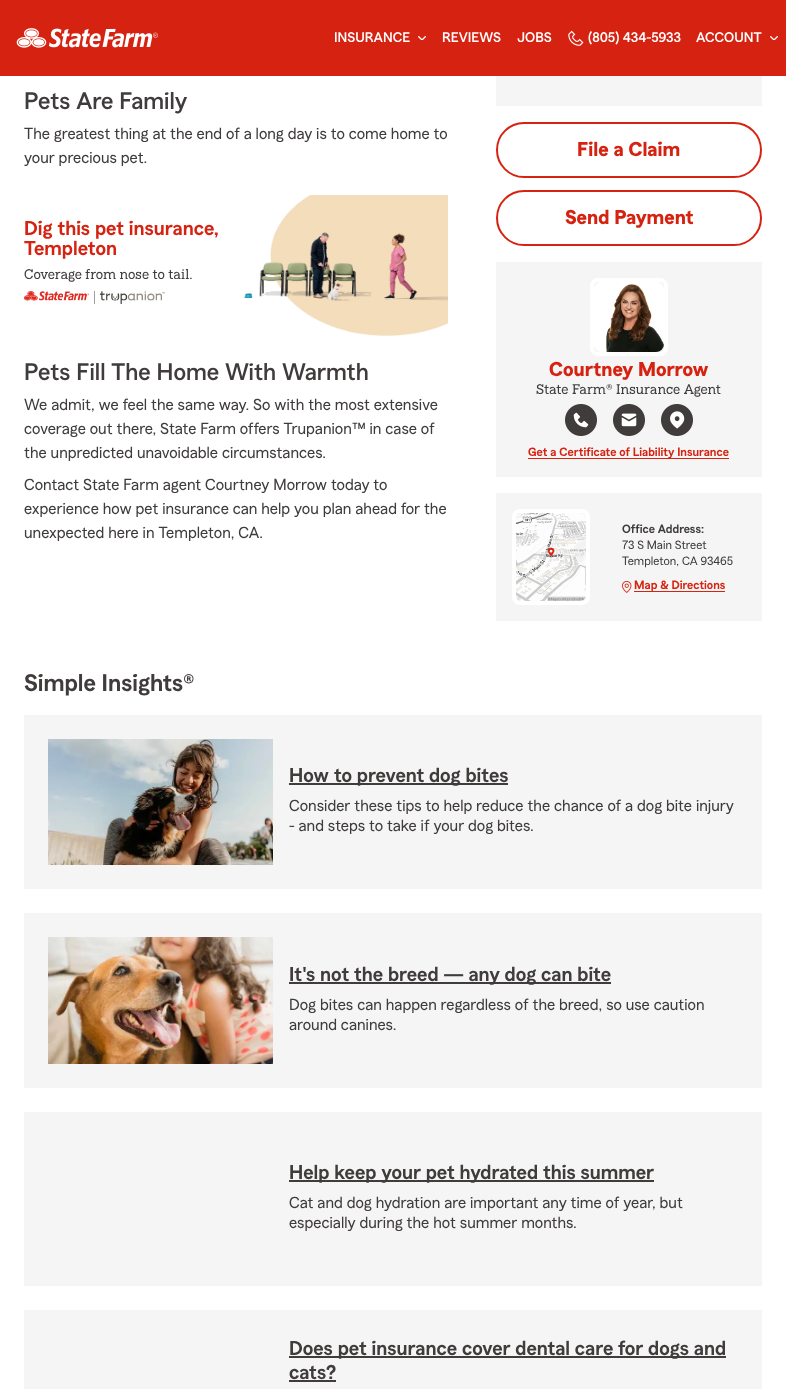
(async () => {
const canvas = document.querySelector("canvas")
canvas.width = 786
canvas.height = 1389
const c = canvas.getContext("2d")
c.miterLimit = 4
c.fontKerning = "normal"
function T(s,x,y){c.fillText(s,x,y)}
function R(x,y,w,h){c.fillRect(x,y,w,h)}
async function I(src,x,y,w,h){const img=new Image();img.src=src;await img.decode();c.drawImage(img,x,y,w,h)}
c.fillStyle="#fff"
R(0,0,786,1389)
c.fillStyle="#d62311"
R(0,0,786,76)
await I("1.png",16,28,142,20)
c.font="500 14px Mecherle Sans"
c.fillStyle="#fff"
T("INSURANCE",334,42)
await I("2.png",418,36,8,4)
T("REVIEWS",442,42)
T("JOBS",517,42)
await I("3.png",568,30,16,16)
T("(805) 434-5933",588,42)
T("ACCOUNT",696,42)
await I("2.png",770,36,8,4)
c.font="500 24px Mecherle Sans"
c.fillStyle="#403c3c"
T("Pets Are Family",24,109)
c.font="16px Mecherle Sans"
T("The greatest thing at the end of a long day is to come home to",24,139)
T("your precious pet.",24,163)
c.font="600 20px Mecherle Sans"
c.fillStyle="#d62311"
T("Dig this pet insurance,",24,235)
T("Templeton",24,255)
c.font="14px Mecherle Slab"
c.fillStyle="#403c3c"
T("Coverage from nose to tail.",24,279)
await I("4.png",24,291,141,13)
await I("5.png",244,195,204,141)
c.font="500 24px Mecherle Sans"
T("Pets Fill The Home With Warmth",24,380)
c.font="16px Mecherle Sans"
T("We admit, we feel the same way. So with the most extensive",24,410)
T("coverage out there, State Farm offers Trupanion™ in case of",24,434)
T("the unpredicted unavoidable circumstances.",24,458)
T("Contact State Farm agent Courtney Morrow today to",24,490)
T("experience how pet insurance can help you plan ahead for the",24,514)
T("unexpected here in Templeton, CA.",24,538)
c.fillStyle="#f5f5f5"
R(496,76,266,30)
c.beginPath()
c.roundRect(497,123,264,54,27)
c.strokeStyle="#d62311"
c.lineWidth=2
c.stroke()
c.font="bold 20px Mecherle Sans"
c.fillStyle="#d62311"
T("File a Claim",577,156)
c.beginPath()
c.roundRect(497,191,264,54,27)
c.stroke()
T("Send Payment",565,224)
c.fillStyle="#f5f5f5"
R(496,262,266,215)
c.beginPath()
c.roundRect(592,280,74,74,6)
c.strokeStyle="#fff"
c.lineWidth=4
c.stroke()
await I("6.png",594,282,70,70)
c.fillStyle="#d62311"
T("Courtney Morrow",549,376)
c.font="14px Mecherle Slab"
c.fillStyle="#403c3c"
T("State Farm® Insurance Agent",536,394)
await I("7.png",565,404,32,32)
await I("8.png",613,404,32,32)
await I("9.png",661,404,32,32)
c.fillStyle="#d62311"
R(528,458,201,1)
c.font="600 12px Mecherle Sans"
T("Get a Certificate of Liability Insurance",528,456)
c.fillStyle="#f5f5f5"
R(496,493,266,128)
c.beginPath()
c.roundRect(514,511,74,92,6)
c.stroke()
await I("10.png",516,513,70,88)
c.fillStyle="#403c3c"
T("Office Address:",622,533)
c.font="12px Mecherle Sans"
T("73 S Main Street",622,549)
T("Templeton, CA 93465",622,565)
await I("11.png",622,581,10,12)
c.fillStyle="#d62311"
R(634,591,91,1)
c.font="600 12px Mecherle Sans"
T("Map & Directions",634,589)
c.font="600 24px Mecherle Sans"
c.fillStyle="#403c3c"
T("Simple Insights®",24,691)
c.fillStyle="#f5f5f5"
R(24,715,738,174)
await I("12.png",48,739,225,126)
c.fillStyle="#403c3c"
R(289,783,219,2)
c.font="600 20px Mecherle Sans"
T("How to prevent dog bites",289,782)
c.font="16px Mecherle Sans"
T("Consider these tips to help reduce the chance of a dog bite injury",289,811)
T("- and steps to take if your dog bites.",289,831)
c.fillStyle="#f5f5f5"
R(24,913,738,175)
await I("13.png",48,937,225,127)
c.fillStyle="#403c3c"
R(289,982,322,2)
c.font="600 20px Mecherle Sans"
T("It's not the breed — any dog can bite",289,981)
c.font="16px Mecherle Sans"
T("Dog bites can happen regardless of the breed, so use caution",289,1010)
T("around canines.",289,1030)
c.fillStyle="#f5f5f5"
R(24,1112,738,174)
c.fillStyle="#403c3c"
R(289,1180,365,2)
c.font="600 20px Mecherle Sans"
T("Help keep your pet hydrated this summer",289,1179)
c.font="16px Mecherle Sans"
T("Cat and dog hydration are important any time of year, but",289,1208)
T("especially during the hot summer months.",289,1228)
c.fillStyle="#f5f5f5"
R(24,1310,738,79)
c.fillStyle="#403c3c"
R(289,1356,437,2)
c.font="600 20px Mecherle Sans"
T("Does pet insurance cover dental care for dogs and",289,1355)
T("cats?",289,1379)
R(289,1380,47,2)
})()
